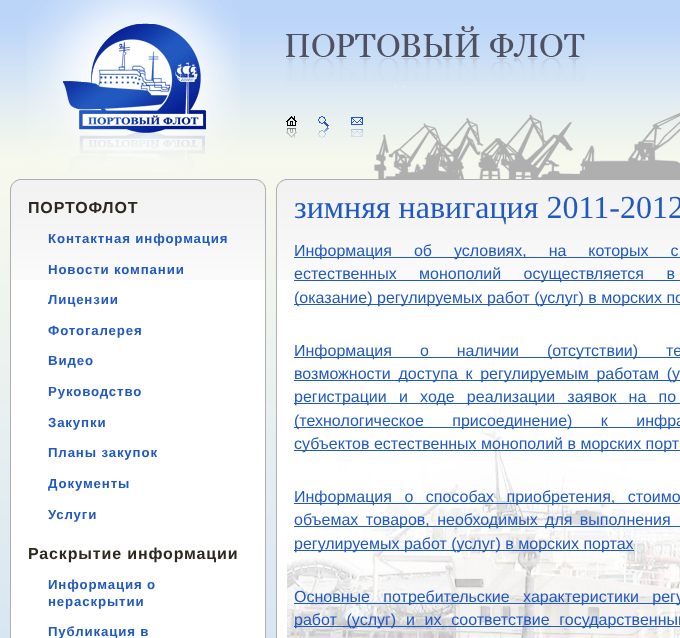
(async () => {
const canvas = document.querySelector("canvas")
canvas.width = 680
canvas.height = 638
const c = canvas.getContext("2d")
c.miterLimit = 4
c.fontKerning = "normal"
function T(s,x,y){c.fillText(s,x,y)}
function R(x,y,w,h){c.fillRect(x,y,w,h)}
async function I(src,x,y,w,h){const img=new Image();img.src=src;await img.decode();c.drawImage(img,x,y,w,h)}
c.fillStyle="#fff"
R(0,0,680,638)
await I("1.png",0,0,680,638)
await I("2.png",27,0,213,172)
await I("3.png",374,86,306,93)
await I("4.png",286,26,299,60)
await I("5.png",286,116,11,22)
await I("6.png",318,116,11,22)
await I("7.png",351,117,12,20)
await I("8.png",10,179,246,10)
await I("9.png",256,179,10,10)
R(11,280,254,358)
await I("10.png",11,189,254,91)
c.fillStyle="#afafaf"
R(265,189,1,449)
R(10,189,1,449)
c.letterSpacing="0.85px"
c.font="bold 16px Liberation Sans"
c.fillStyle="#2c271f"
T("ПОРТОФЛОТ",28,213)
c.font="bold 13.25px Liberation Sans"
c.fillStyle="#2159c0"
T("Контактная информация",48,243)
T("Новости компании",48,274)
T("Лицензии",48,304)
T("Фотогалерея",48,335)
T("Видео",48,365)
T("Руководство",48,396)
T("Закупки",48,427)
T("Планы закупок",48,457)
T("Документы",48,488)
T("Услуги",48,519)
c.font="bold 16px Liberation Sans"
c.fillStyle="#2c271f"
T("Раскрытие информации",28,559)
c.font="bold 13.25px Liberation Sans"
c.fillStyle="#2159c0"
T("Информация о",48,589)
T("нераскрытии",48,606)
T("Публикация в",48,636)
await I("11.png",276,179,404,10)
c.fillStyle="#fff"
R(277,280,403,358)
await I("12.png",277,189,403,91)
c.fillStyle="#afafaf"
R(276,189,1,449)
await I("13.png",287,402,393,236)
c.letterSpacing="0px"
c.font="32px Liberation Serif"
c.fillStyle="#2159c0"
T("зимняя навигация 2011-2012",294,218)
R(294,257,386,1)
c.wordSpacing="17.5px"
c.font="16px Liberation Sans"
T("Информация об условиях, на которых с",294,256)
R(294,280,386,1)
c.wordSpacing="18px"
T("естественных монополий осуществляется в",294,279)
R(294,304,386,1)
c.wordSpacing="0px"
T("(оказание) регулируемых работ (услуг) в морских по",294,303)
R(294,357,386,1)
c.wordSpacing="23.5px"
T("Информация о наличии (отсутствии) те",294,356)
R(294,380,386,1)
c.wordSpacing="3.25px"
T("возможности доступа к регулируемым работам (у",294,379)
R(294,403,386,1)
c.wordSpacing="7.75px"
T("регистрации и ходе реализации заявок на по",294,402)
R(294,427,386,1)
c.wordSpacing="24px"
T("(технологическое присоединение) к инфра",294,426)
R(294,450,386,1)
c.wordSpacing="0px"
T("субъектов естественных монополий в морских порт",294,449)
R(294,503,386,1)
c.wordSpacing="8px"
T("Информация о способах приобретения, стоимо",294,502)
R(294,526,386,1)
c.wordSpacing="3px"
T("объемах товаров, необходимых для выполнения",294,525)
R(294,550,340,1)
c.wordSpacing="0px"
T("регулируемых работ (услуг) в морских портах",294,549)
R(294,603,386,1)
c.wordSpacing="9px"
T("Основные потребительские характеристики регу",294,602)
R(294,626,386,1)
c.wordSpacing="5.25px"
T("работ (услуг) и их соответствие государственным",294,625)
})()
